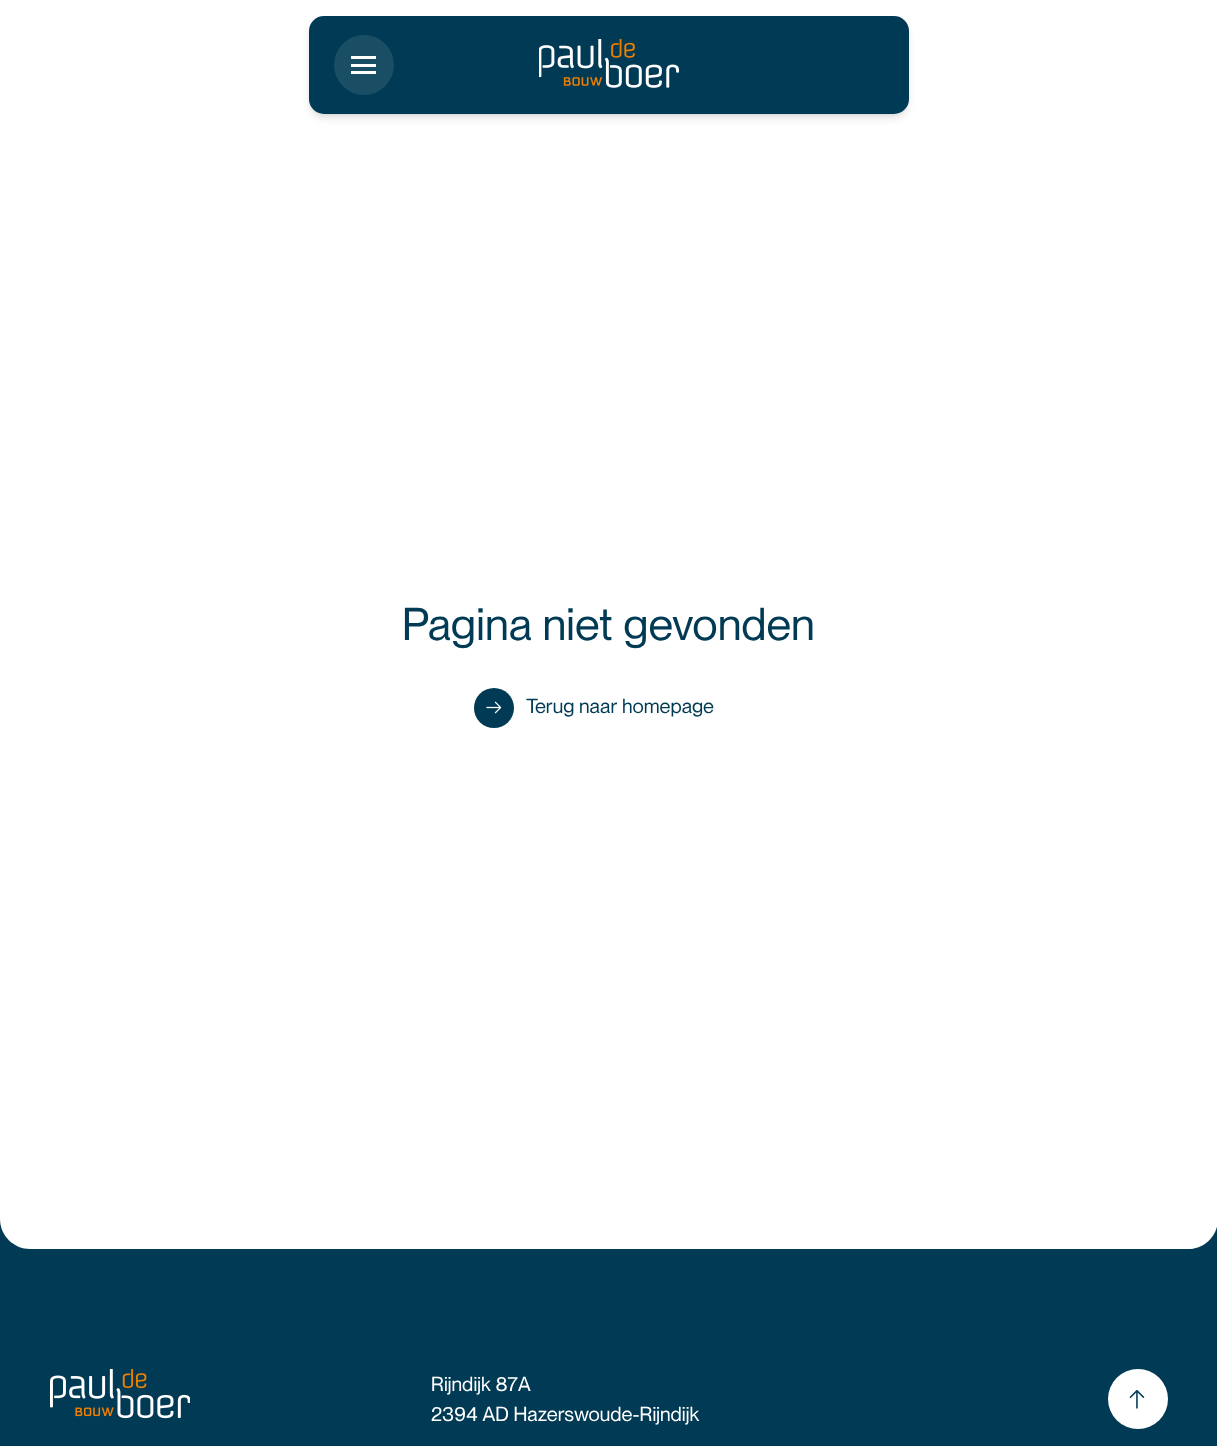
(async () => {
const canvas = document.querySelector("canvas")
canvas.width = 1217
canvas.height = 1446
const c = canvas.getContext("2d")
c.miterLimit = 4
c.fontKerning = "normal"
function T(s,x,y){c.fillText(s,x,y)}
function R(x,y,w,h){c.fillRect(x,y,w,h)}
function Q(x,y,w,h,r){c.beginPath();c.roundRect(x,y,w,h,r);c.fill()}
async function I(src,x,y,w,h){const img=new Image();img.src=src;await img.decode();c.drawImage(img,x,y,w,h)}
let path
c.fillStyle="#fff"
R(0,0,1217,1446)
c.fillStyle="#0000001a"
c.filter="blur(2.5px)"
c.beginPath()
c.roundRect(311,21,595,93,13)
c.fill()
c.filter="none"
c.filter="blur(4px)"
c.beginPath()
c.roundRect(310,23,598,95,14)
c.fill()
c.filter="none"
c.fillStyle="#003a54"
Q(309,16,600,98,15)
c.fillStyle="#1a4e65"
c.beginPath()
c.arc(364,65,30,0,7)
c.fill()
c.fillStyle="#fff"
R(351,56,25,3)
R(351,64,25,3)
R(351,71,25,3)
await I("1.png",539,39,140,49)
c.font="45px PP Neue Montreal"
c.fillStyle="#003a54"
T("Pagina niet gevonden",402,640)
c.beginPath()
c.arc(494,708,20,0,7)
c.fill()
await I("2.png",486,701,16,13)
c.font="20px PP Neue Montreal"
T("Terug naar homepage",526,713)
R(0,1219,1217,227)
c.fillStyle="#fff"
path = new Path2D("M0 1129h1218v90c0 16.5-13.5 30-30 30h-1158c-16.5 0-30-13.5-30-30z")
c.fill(path)
await I("3.png",50,1369,140,50)
T("Rijndijk 87A",431,1391)
T("2394 AD Hazerswoude-Rijndijk",431,1421)
c.beginPath()
c.arc(1138,1399,30,0,7)
c.fill()
await I("4.png",1129,1390,16,19)
})()
